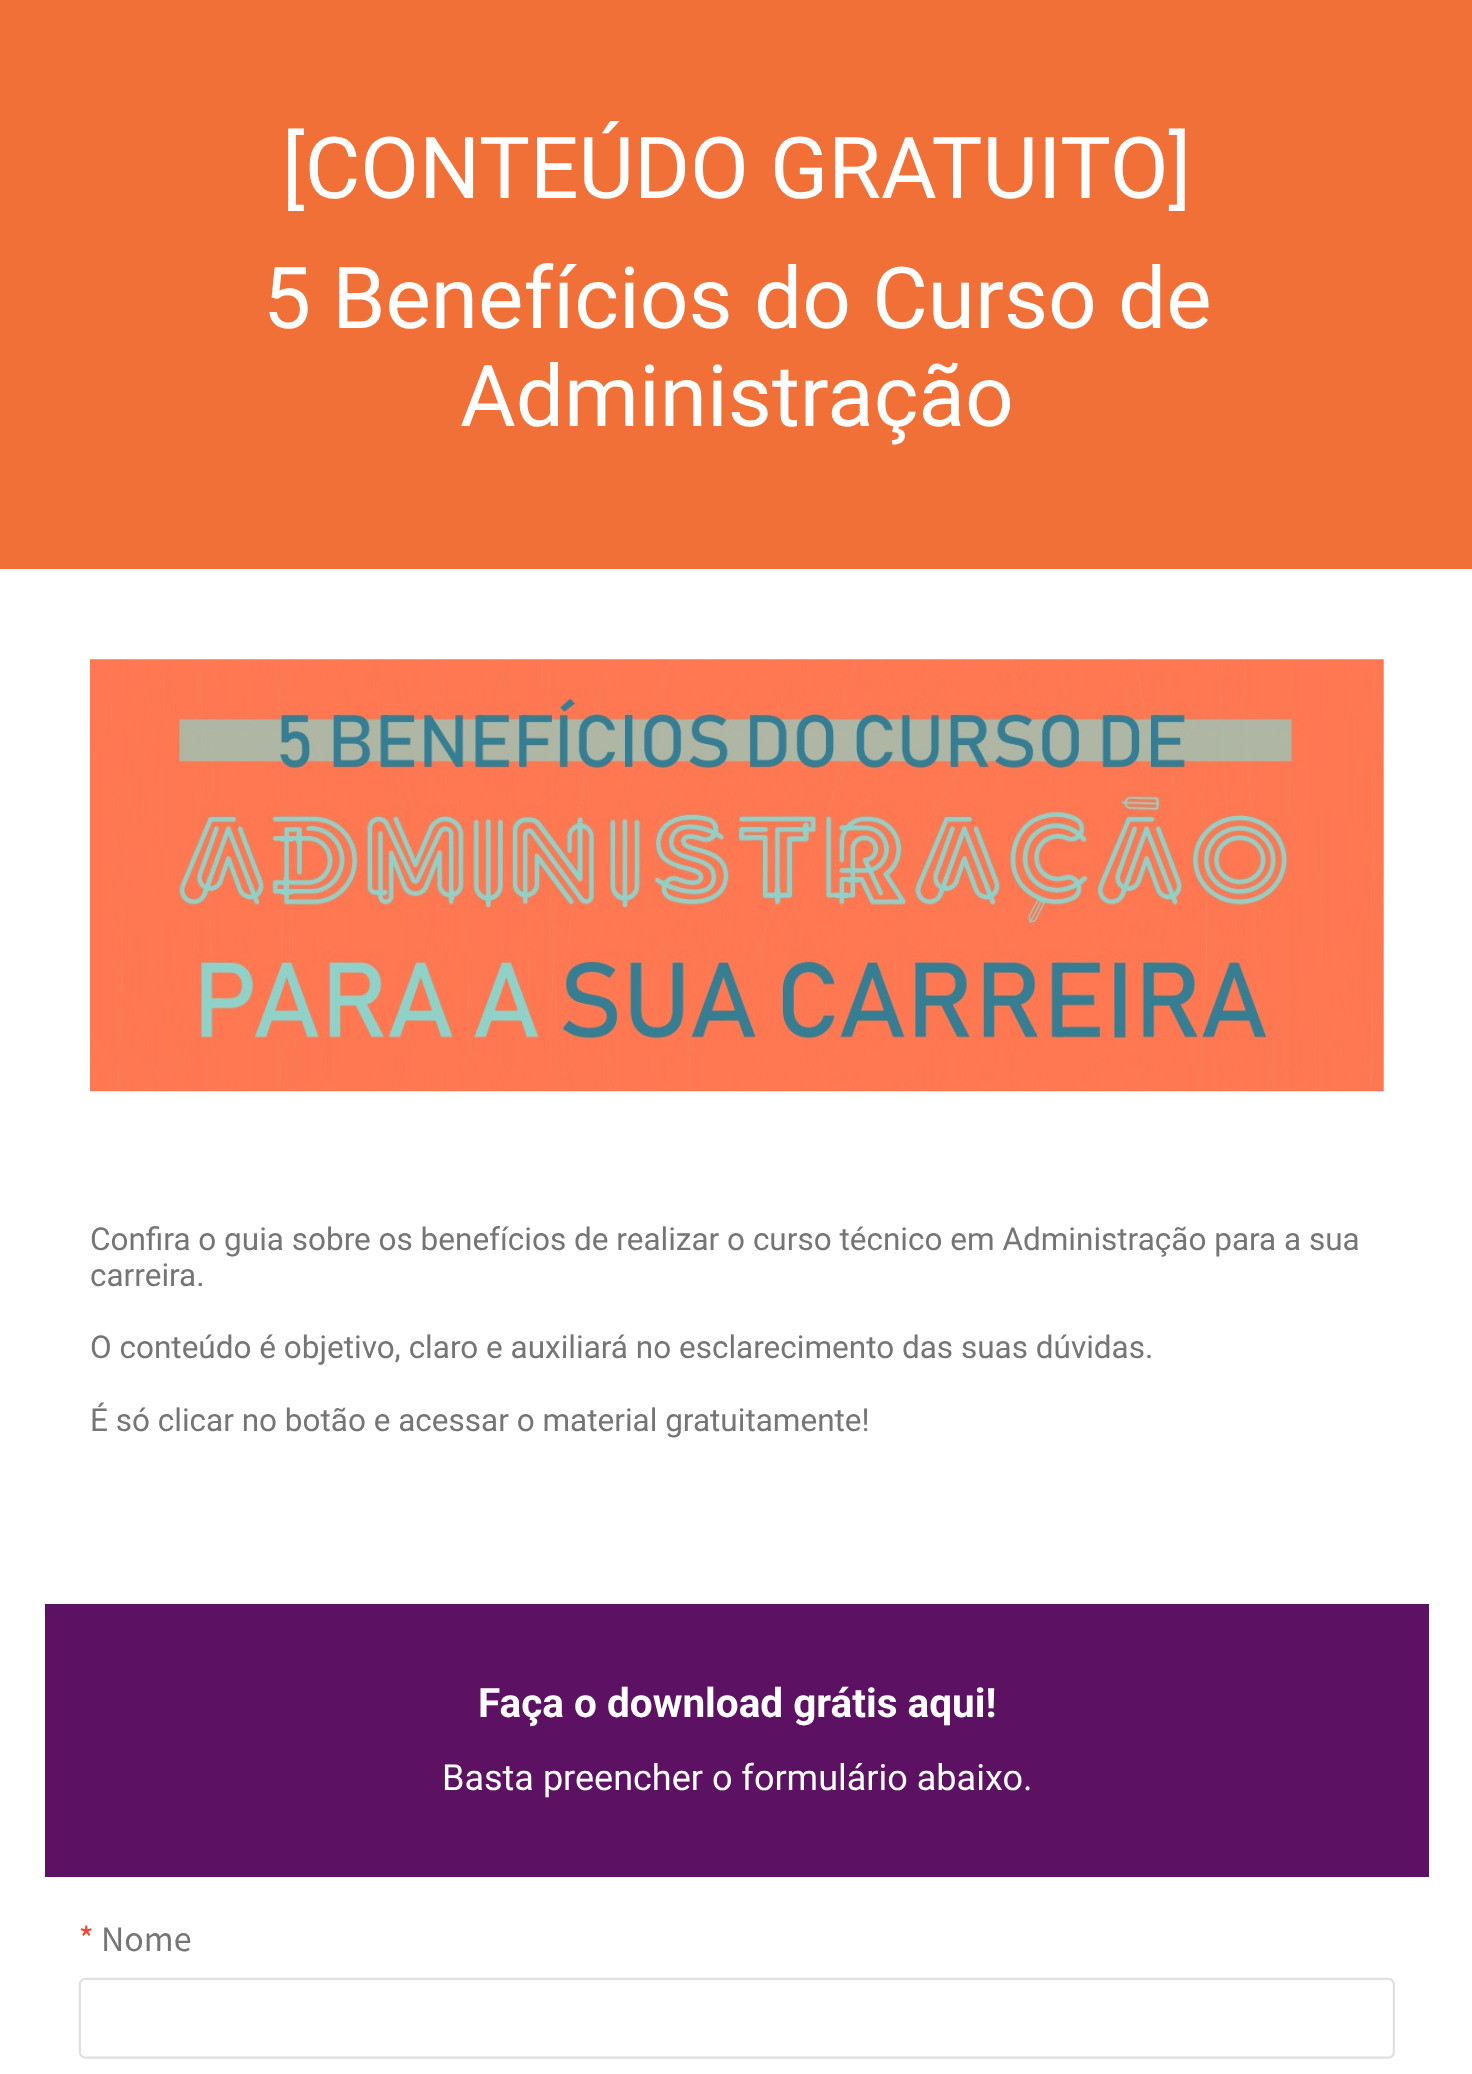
(async () => {
const canvas = document.querySelector("canvas")
canvas.width = 1472
canvas.height = 2074
const c = canvas.getContext("2d")
c.miterLimit = 4
c.fontKerning = "normal"
function T(s,x,y){c.fillText(s,x,y)}
function R(x,y,w,h){c.fillRect(x,y,w,h)}
async function I(src,x,y,w,h){const img=new Image();img.src=src;await img.decode();c.drawImage(img,x,y,w,h)}
c.fillStyle="#fff"
R(0,0,1472,2074)
c.fillStyle="#f07038"
R(0,0,1472,569)
c.font="85.5px Roboto"
c.fillStyle="#fff"
T("[CONTEÚDO GRATUITO]",282,198)
T("5 Benefícios do Curso de",263,328)
T("Administração",460,426)
await I("1.png",90,659,1294,433)
c.font="31.5px Roboto"
c.fillStyle="#757575"
T("Confira o guia sobre os benefícios de realizar o curso técnico em Administração para a sua",90,1250)
T("carreira.",90,1286)
T("O conteúdo é objetivo, claro e auxiliará no esclarecimento das suas dúvidas.",90,1358)
T("É só clicar no botão e acessar o material gratuitamente!",90,1431)
c.fillStyle="#5d1163"
R(45,1604,1384,273)
c.font="bold 40.5px Roboto"
c.fillStyle="#fff"
T("Faça o download grátis aqui!",478,1717)
c.font="36px Roboto"
T("Basta preencher o formulário abaixo.",442,1790)
await I("2.png",78,1925,1317,134)
})()
